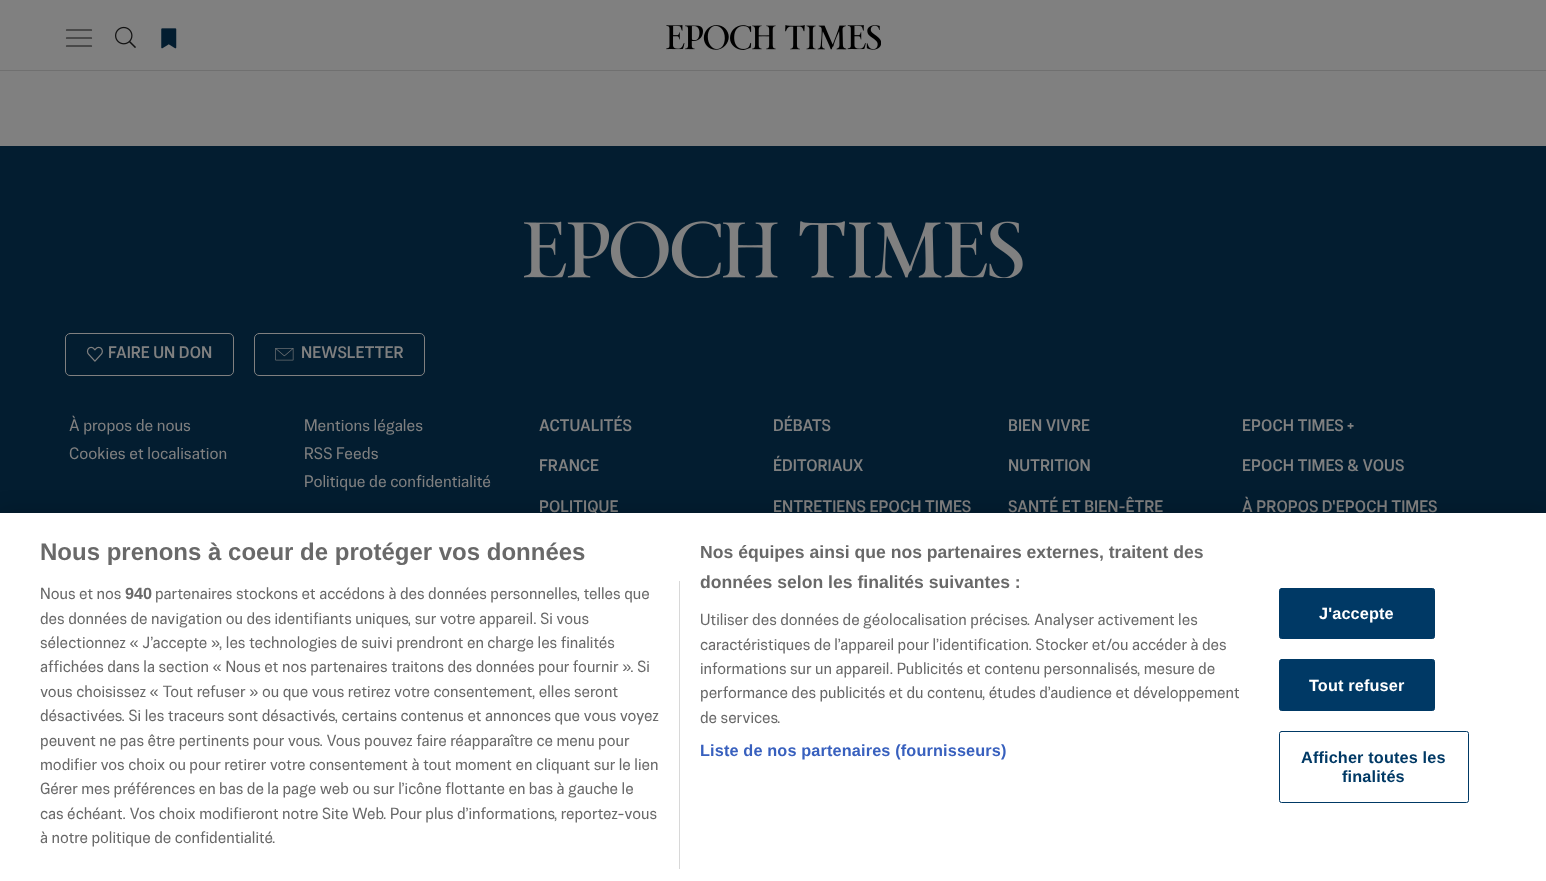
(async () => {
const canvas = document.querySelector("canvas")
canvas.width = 1546
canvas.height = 881
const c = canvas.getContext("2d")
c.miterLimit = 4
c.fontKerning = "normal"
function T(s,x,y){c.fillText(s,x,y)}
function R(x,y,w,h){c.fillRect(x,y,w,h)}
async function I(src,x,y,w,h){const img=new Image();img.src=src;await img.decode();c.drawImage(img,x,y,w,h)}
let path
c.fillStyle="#808080"
R(0,0,1546,881)
c.fillStyle="#707070"
R(0,70,1546,1)
path = new Path2D("M66.5 30h25m-25 8h25m-25 8h25")
c.strokeStyle="#131313"
c.lineWidth=1.2
c.lineCap="round"
c.stroke(path)
await I("1.png",115,26,21,22)
await I("2.png",161,28,16,21)
await I("3.png",666,25,215,25)
c.fillStyle="#031d30"
R(0,146,1546,367)
await I("4.png",524,221,499,57)
c.beginPath()
c.roundRect(65.5,333.5,168,42,4.5)
c.strokeStyle="#808080"
c.lineWidth=1
c.stroke()
await I("5.png",86,346,17,16)
c.font="500 16.7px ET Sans"
c.fillStyle="#808080"
T("FAIRE UN DON",108,358)
c.beginPath()
c.roundRect(254.5,333.5,170,42,4.5)
c.stroke()
await I("6.png",275,348,19,13)
T("NEWSLETTER",301,358)
c.font="16.7px ET Sans"
T("À propos de nous",69,431)
T("Cookies et localisation",69,459)
T("Mentions légales",304,431)
T("RSS Feeds",304,459)
T("Politique de confidentialité",304,487)
c.font="500 16.7px ET Sans"
T("ACTUALITÉS",539,431)
T("FRANCE",539,471)
T("POLITIQUE",539,512)
T("DÉBATS",773,431)
T("ÉDITORIAUX",773,471)
T("ENTRETIENS EPOCH TIMES",773,512)
T("BIEN VIVRE",1008,431)
T("NUTRITION",1008,471)
T("SANTÉ ET BIEN-ÊTRE",1008,512)
T("EPOCH TIMES +",1242,431)
T("EPOCH TIMES & VOUS",1242,471)
T("À PROPOS D'EPOCH TIMES",1242,512)
c.fillStyle="#00000033"
c.filter="blur(11px)"
c.beginPath()
c.rect(0,513,1546,368)
c.fill()
c.filter="none"
c.fillStyle="#fff"
R(0,513,1546,368)
c.font="bold 24px Liberation Sans"
c.fillStyle="#696969"
T("Nous prenons à coeur de protéger vos données",40,560)
c.font="bold 17.6px Liberation Sans"
T("Nos équipes ainsi que nos partenaires externes, traitent des",700,558)
T("données selon les finalités suivantes :",700,588)
c.font="16.25px ET Sans"
T("Utiliser des données de géolocalisation précises. Analyser activement les",700,625)
T("caractéristiques de l’appareil pour l’identification. Stocker et/ou accéder à des",700,650)
T("informations sur un appareil. Publicités et contenu personnalisés, mesure de",700,674)
T("performance des publicités et du contenu, études d’audience et développement",700,698)
T("de services.",700,723)
c.letterSpacing="0.15px"
c.font="bold 16.25px Liberation Sans"
c.fillStyle="#3860be"
T("Liste de nos partenaires (fournisseurs)",700,756)
c.fillStyle="#d8d8d8"
R(679,581,1,288)
c.letterSpacing="0px"
c.font="16.25px ET Sans"
c.fillStyle="#696969"
T("Nous et nos",40,599)
c.font="bold 16.25px Liberation Sans"
T("940",125,599)
c.font="16.25px ET Sans"
T("partenaires stockons et accédons à des données personnelles, telles que",155,599)
T("des données de navigation ou des identifiants uniques, sur votre appareil. Si vous",40,624)
T("sélectionnez « J’accepte », les technologies de suivi prendront en charge les finalités",40,648)
T("affichées dans la section « Nous et nos partenaires traitons des données pour fournir ». Si",40,672)
T("vous choisissez « Tout refuser » ou que vous retirez votre consentement, elles seront",40,697)
T("désactivées. Si les traceurs sont désactivés, certains contenus et annonces que vous voyez",40,721)
T("peuvent ne pas être pertinents pour vous. Vous pouvez faire réapparaître ce menu pour",40,746)
T("modifier vos choix ou pour retirer votre consentement à tout moment en cliquant sur le lien",40,770)
T("Gérer mes préférences en bas de la page web ou sur l’icône flottante en bas à gauche le",40,794)
T("cas échéant. Vos choix modifieront notre Site Web. Pour plus d’informations, reportez-vous",40,819)
T("à notre politique de confidentialité.",40,843)
c.fillStyle="#003965"
c.beginPath()
c.roundRect(1279.5,588.5,155,50,2)
c.fill()
c.strokeStyle="#003965"
c.stroke()
c.letterSpacing="0.15px"
c.font="bold 16.25px Liberation Sans"
c.fillStyle="#fff"
T("J'accepte",1319,619)
c.fillStyle="#003965"
c.beginPath()
c.roundRect(1279.5,659.5,155,51,2)
c.fill()
c.stroke()
c.fillStyle="#fff"
T("Tout refuser",1309,691)
c.beginPath()
c.roundRect(1279.5,731.5,189,71,2)
c.stroke()
c.fillStyle="#003965"
T("Afficher toutes les",1301,763)
T("finalités",1342,782)
})()
